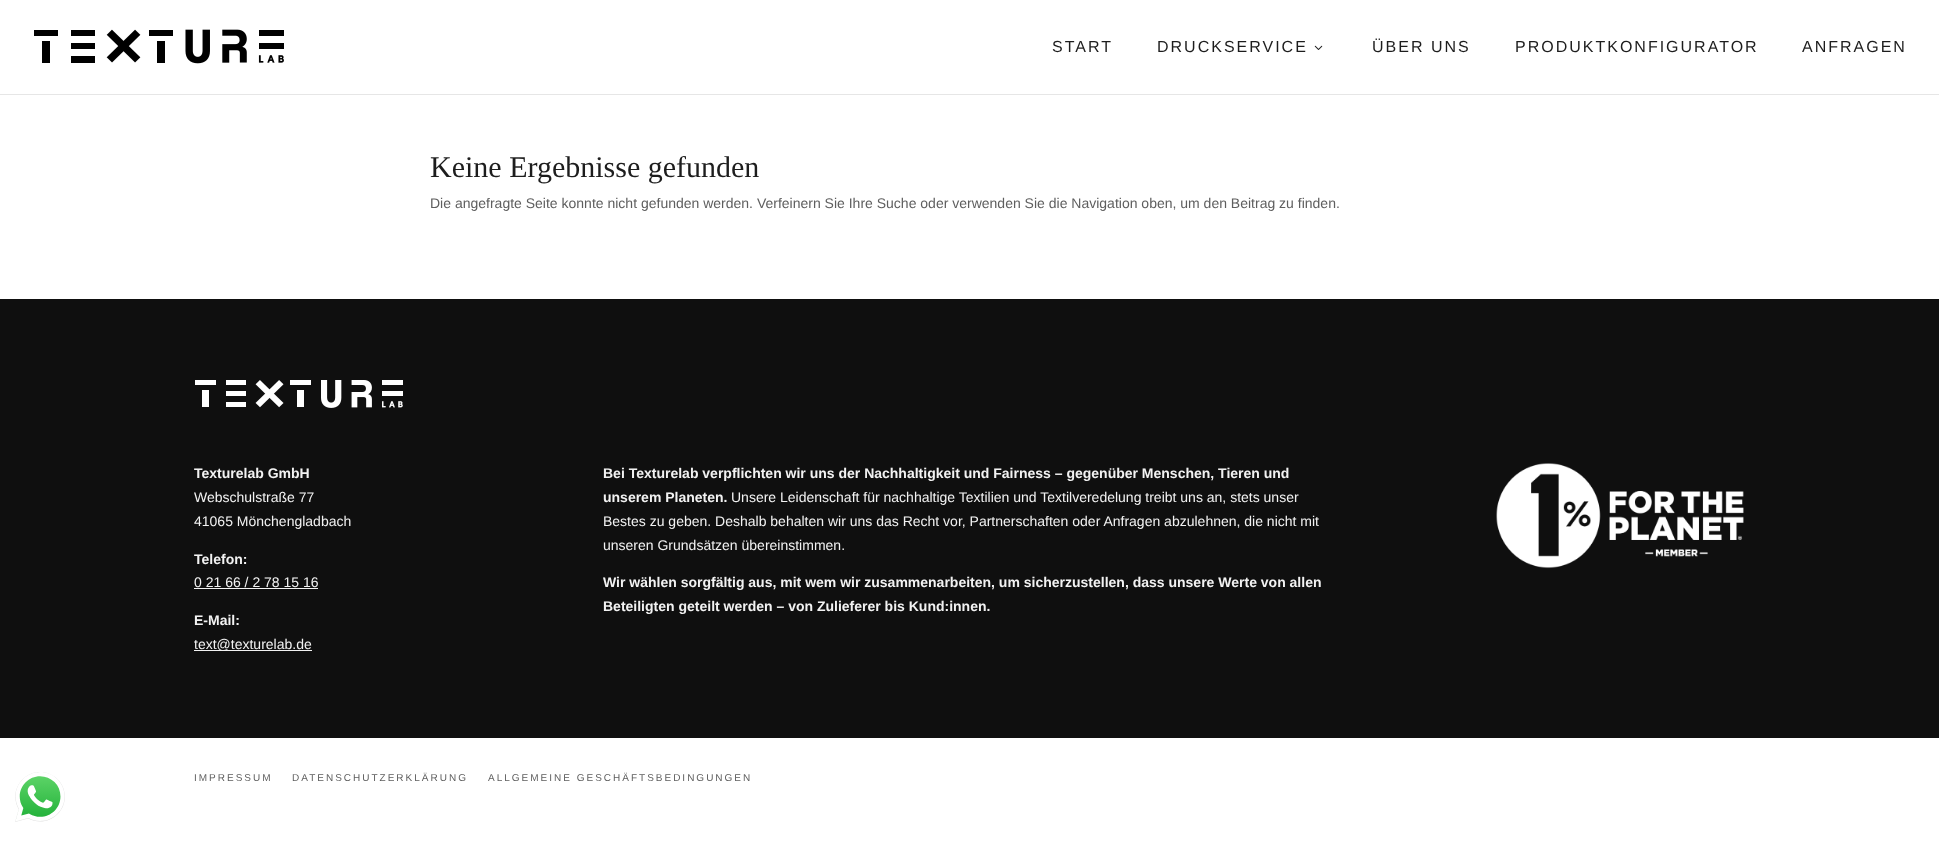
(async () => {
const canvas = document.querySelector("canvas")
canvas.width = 1939
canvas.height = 845
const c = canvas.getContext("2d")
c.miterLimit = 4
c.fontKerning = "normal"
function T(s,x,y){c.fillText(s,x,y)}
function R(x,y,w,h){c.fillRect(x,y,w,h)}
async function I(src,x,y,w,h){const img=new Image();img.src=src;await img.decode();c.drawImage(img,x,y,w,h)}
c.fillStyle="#fff"
R(0,0,1939,845)
c.fillStyle="#e6e6e6"
R(0,94,1939,1)
await I("1.png",34,29,250,35)
c.letterSpacing="2px"
c.font="16px Liberation Sans"
c.fillStyle="#1d1d1d"
T("START",1052,52)
T("DRUCKSERVICE",1157,52)
await I("2.png",1314,45,9,5)
T("ÜBER UNS",1372,52)
T("PRODUKTKONFIGURATOR",1515,52)
T("ANFRAGEN",1802,52)
c.letterSpacing="0px"
c.font="30px Liberation Serif"
T("Keine Ergebnisse gefunden",430,177)
c.font="14px Liberation Sans"
c.fillStyle="#5e5e5e"
T("Die angefragte Seite konnte nicht gefunden werden. Verfeinern Sie Ihre Suche oder verwenden Sie die Navigation oben, um den Beitrag zu finden.",430,208)
c.fillStyle="#0f0f0f"
R(0,299,1939,439)
await I("3.png",195,380,208,28)
c.font="bold 14px Liberation Sans"
c.fillStyle="#f2f2f2"
T("Texturelab GmbH",194,478)
c.font="14px Liberation Sans"
T("Webschulstraße 77",194,502)
T("41065 Mönchengladbach",194,526)
c.font="bold 14px Liberation Sans"
T("Telefon:",194,564)
c.font="14px Liberation Sans"
T("0 21 66 / 2 78 15 16",194,587)
R(194,588,124,1)
c.font="bold 14px Liberation Sans"
T("E-Mail:",194,625)
R(194,650,118,1)
c.font="14px Liberation Sans"
T("text@texturelab.de",194,649)
c.font="bold 14px Liberation Sans"
T("Bei Texturelab verpflichten wir uns der Nachhaltigkeit und Fairness – gegenüber Menschen, Tieren und",603,478)
T("unserem Planeten.",603,502)
c.font="14px Liberation Sans"
T("Unsere Leidenschaft für nachhaltige Textilien und Textilveredelung treibt uns an, stets unser",731,502)
T("Bestes zu geben. Deshalb behalten wir uns das Recht vor, Partnerschaften oder Anfragen abzulehnen, die nicht mit",603,526)
T("unseren Grundsätzen übereinstimmen.",603,550)
c.font="bold 14px Liberation Sans"
T("Wir wählen sorgfältig aus, mit wem wir zusammenarbeiten, um sicherzustellen, dass unsere Werte von allen",603,587)
T("Beteiligten geteilt werden – von Zulieferer bis Kund:innen.",603,611)
await I("4.png",1496,463,248,106)
c.letterSpacing="2px"
c.font="10px Liberation Sans"
c.fillStyle="#5e5e5e"
T("IMPRESSUM",194,781)
T("DATENSCHUTZERKLÄRUNG",292,781)
T("ALLGEMEINE GESCHÄFTSBEDINGUNGEN",488,781)
await I("5.png",15,772,50,50)
})()
